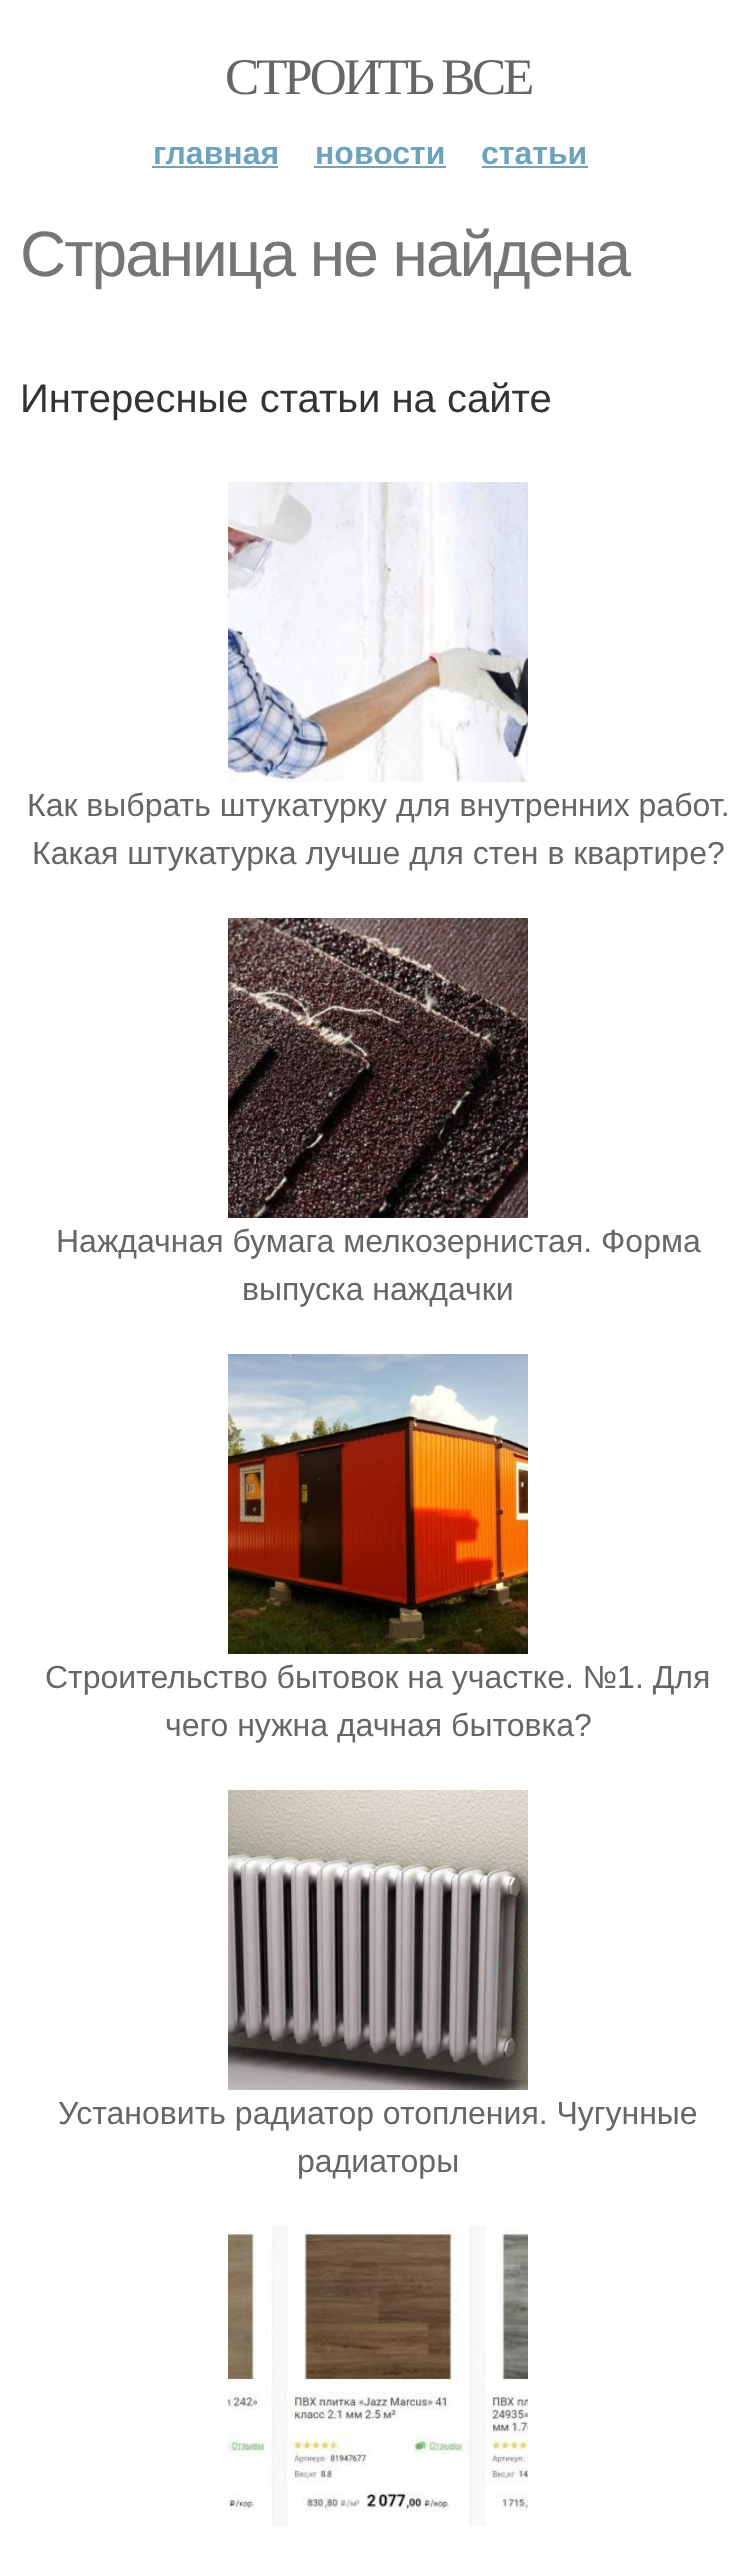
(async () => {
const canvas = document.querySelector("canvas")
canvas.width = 755
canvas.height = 2551
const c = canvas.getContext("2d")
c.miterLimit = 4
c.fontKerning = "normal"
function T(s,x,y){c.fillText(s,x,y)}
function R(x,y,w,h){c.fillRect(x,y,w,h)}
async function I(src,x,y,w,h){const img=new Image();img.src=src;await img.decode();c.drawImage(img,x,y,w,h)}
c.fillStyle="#fff"
R(0,0,755,2551)
c.letterSpacing="-3.25px"
c.font="51.25px Liberation Serif"
c.fillStyle="#666"
T("СТРОИТЬ ВСЕ",225,94)
c.letterSpacing="0px"
c.font="bold 32px Liberation Sans"
c.fillStyle="#6da3bd"
T("главная",153,164)
R(152,166,126,2)
T("новости",315,164)
R(314,166,132,2)
T("статьи",481,164)
R(482,166,106,2)
c.letterSpacing="-2px"
c.font="64px Liberation Sans"
c.fillStyle="#767676"
T("Страница не найдена",20,276)
c.letterSpacing="0px"
c.font="40px Liberation Sans"
c.fillStyle="#333"
T("Интересные статьи на сайте",20,412)
await I("1.png",228,482,300,300)
c.font="32px Liberation Sans"
c.fillStyle="#666"
T("Как выбрать штукатурку для внутренних работ.",27,816)
T("Какая штукатурка лучше для стен в квартире?",32,864)
await I("2.png",228,918,300,300)
T("Наждачная бумага мелкозернистая. Форма",56,1252)
T("выпуска наждачки",242,1300)
await I("3.png",228,1354,300,300)
T("Строительство бытовок на участке. №1. Для",45,1688)
T("чего нужна дачная бытовка?",165,1736)
await I("4.png",228,1790,300,300)
T("Установить радиатор отопления. Чугунные",58,2124)
T("радиаторы",297,2172)
await I("5.png",228,2226,300,300)
})()
